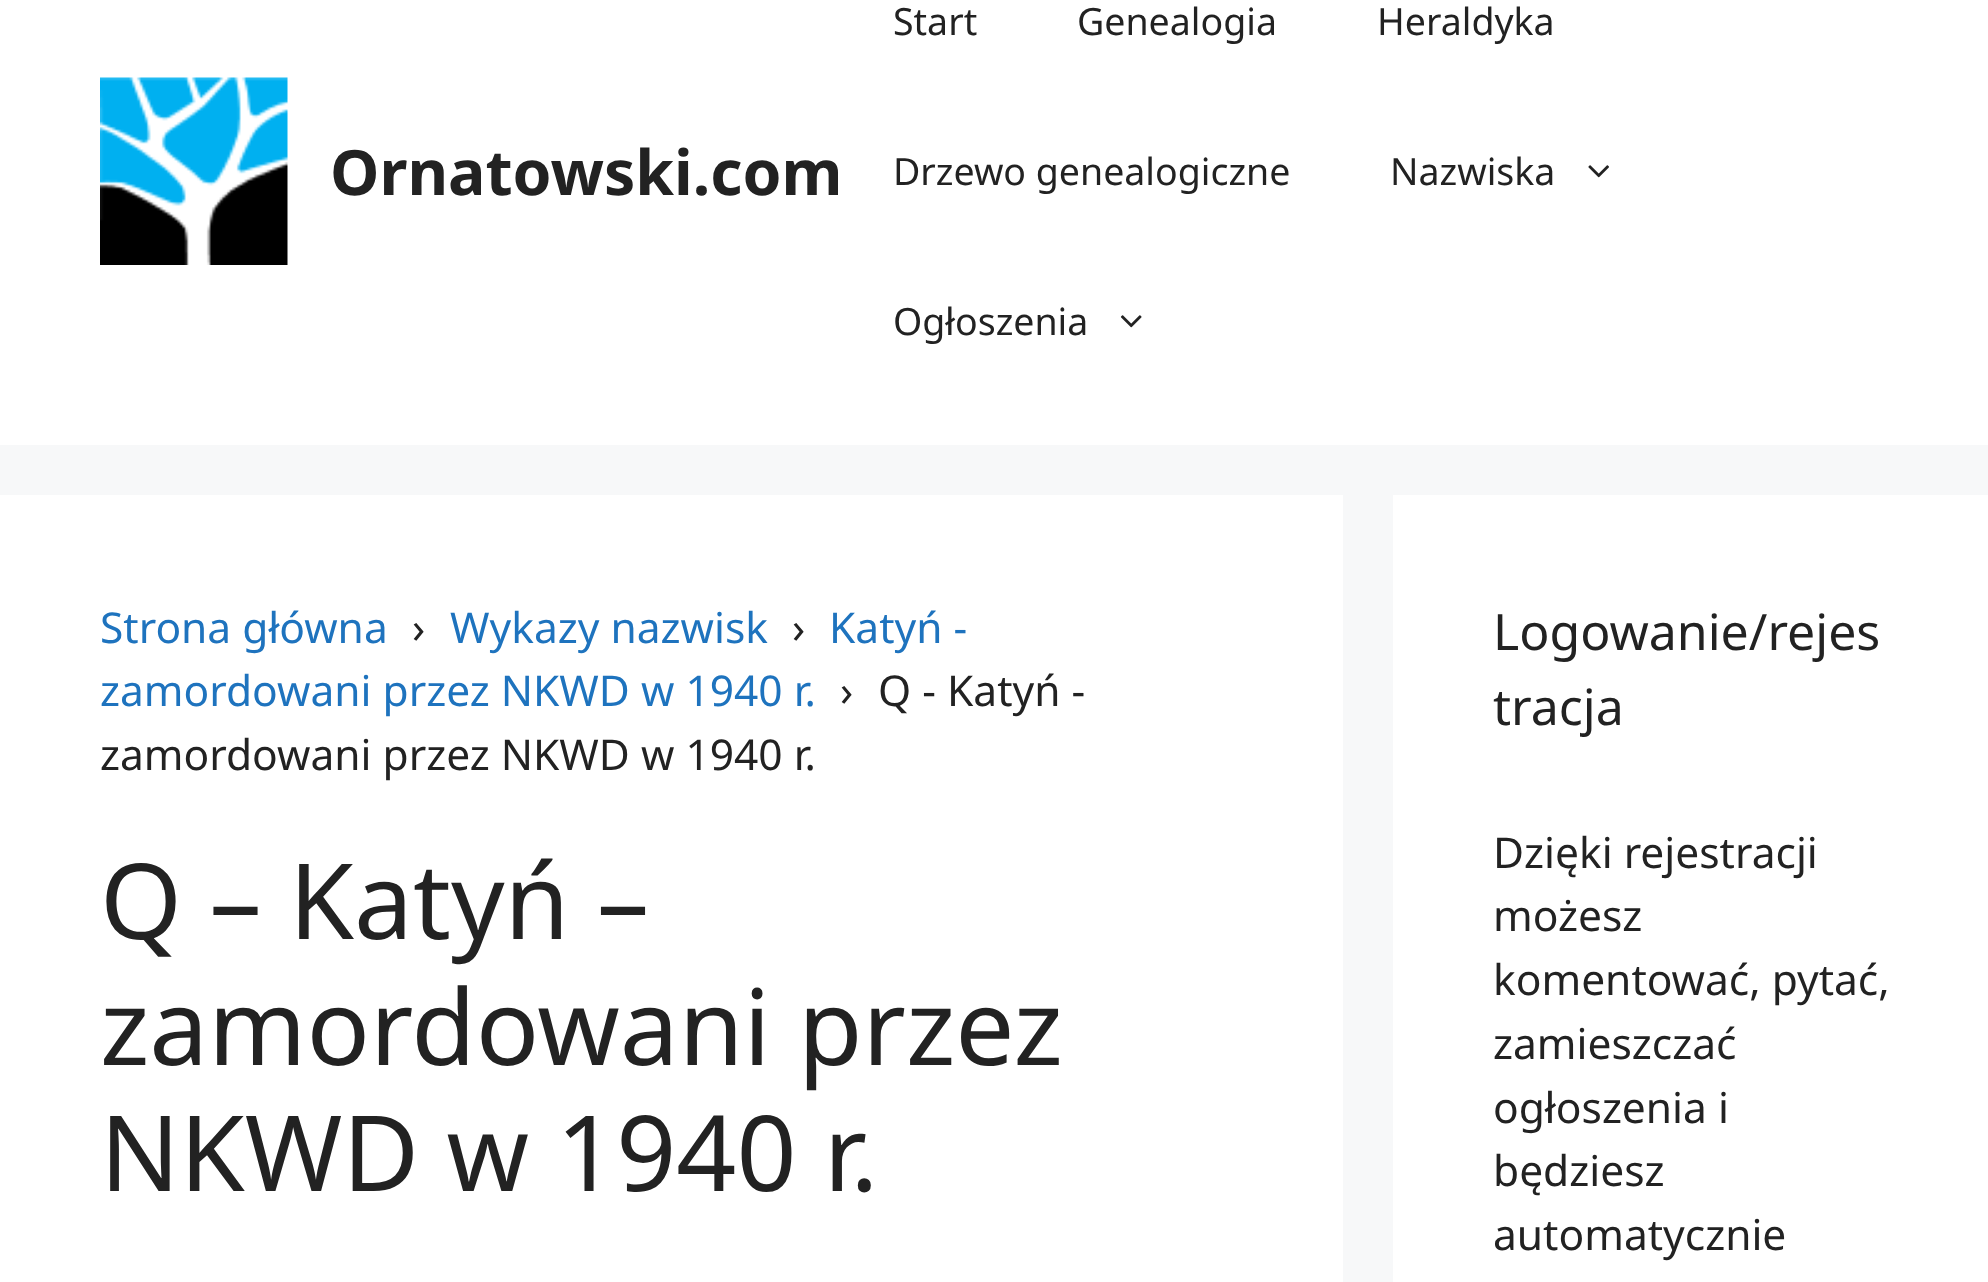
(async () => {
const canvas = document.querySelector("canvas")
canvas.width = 1988
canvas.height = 1282
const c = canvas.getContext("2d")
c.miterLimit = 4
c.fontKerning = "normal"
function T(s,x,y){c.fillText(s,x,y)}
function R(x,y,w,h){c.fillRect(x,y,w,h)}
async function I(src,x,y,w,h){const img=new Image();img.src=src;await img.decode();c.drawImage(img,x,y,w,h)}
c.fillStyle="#f7f8f9"
R(0,0,1988,1282)
c.fillStyle="#fff"
R(0,0,1988,445)
await I("1.png",100,77,188,188)
c.font="bold 62.5px Noto Sans"
c.fillStyle="#222"
T("Ornatowski.com",330,195)
c.font="37.5px Noto Sans"
T("Start",893,35)
T("Genealogia",1077,35)
T("Heraldyka",1377,35)
T("Drzewo genealogiczne",893,185)
T("Nazwiska",1390,185)
await I("2.png",1588,165,21,13)
T("Ogłoszenia",893,335)
await I("3.png",1120,315,22,13)
c.fillStyle="#fff"
R(0,495,1343,787)
c.font="42.5px Noto Sans"
c.fillStyle="#1e73be"
T("Strona główna",100,643)
c.fillStyle="#222"
T("›",412,643)
c.fillStyle="#1e73be"
T("Wykazy nazwisk",450,643)
c.fillStyle="#222"
T("›",792,643)
c.fillStyle="#1e73be"
T("Katyń -",829,643)
T("zamordowani przez NKWD w 1940 r.",100,706)
c.fillStyle="#222"
T("›",840,706)
T("Q - Katyń -",878,706)
T("zamordowani przez NKWD w 1940 r.",100,770)
c.font="105px Noto Sans"
T("Q – Katyń –",100,939)
T("zamordowani przez",100,1065)
T("NKWD w 1940 r.",100,1191)
c.fillStyle="#fff"
R(1393,495,595,787)
c.font="50px Noto Sans"
c.fillStyle="#222"
T("Logowanie/rejes",1493,650)
T("tracja",1493,725)
c.font="42.5px Noto Sans"
T("Dzięki rejestracji",1493,868)
T("możesz",1493,931)
T("komentować, pytać,",1493,995)
T("zamieszczać",1493,1059)
T("ogłoszenia i",1493,1123)
T("będziesz",1493,1186)
T("automatycznie",1493,1250)
})()
